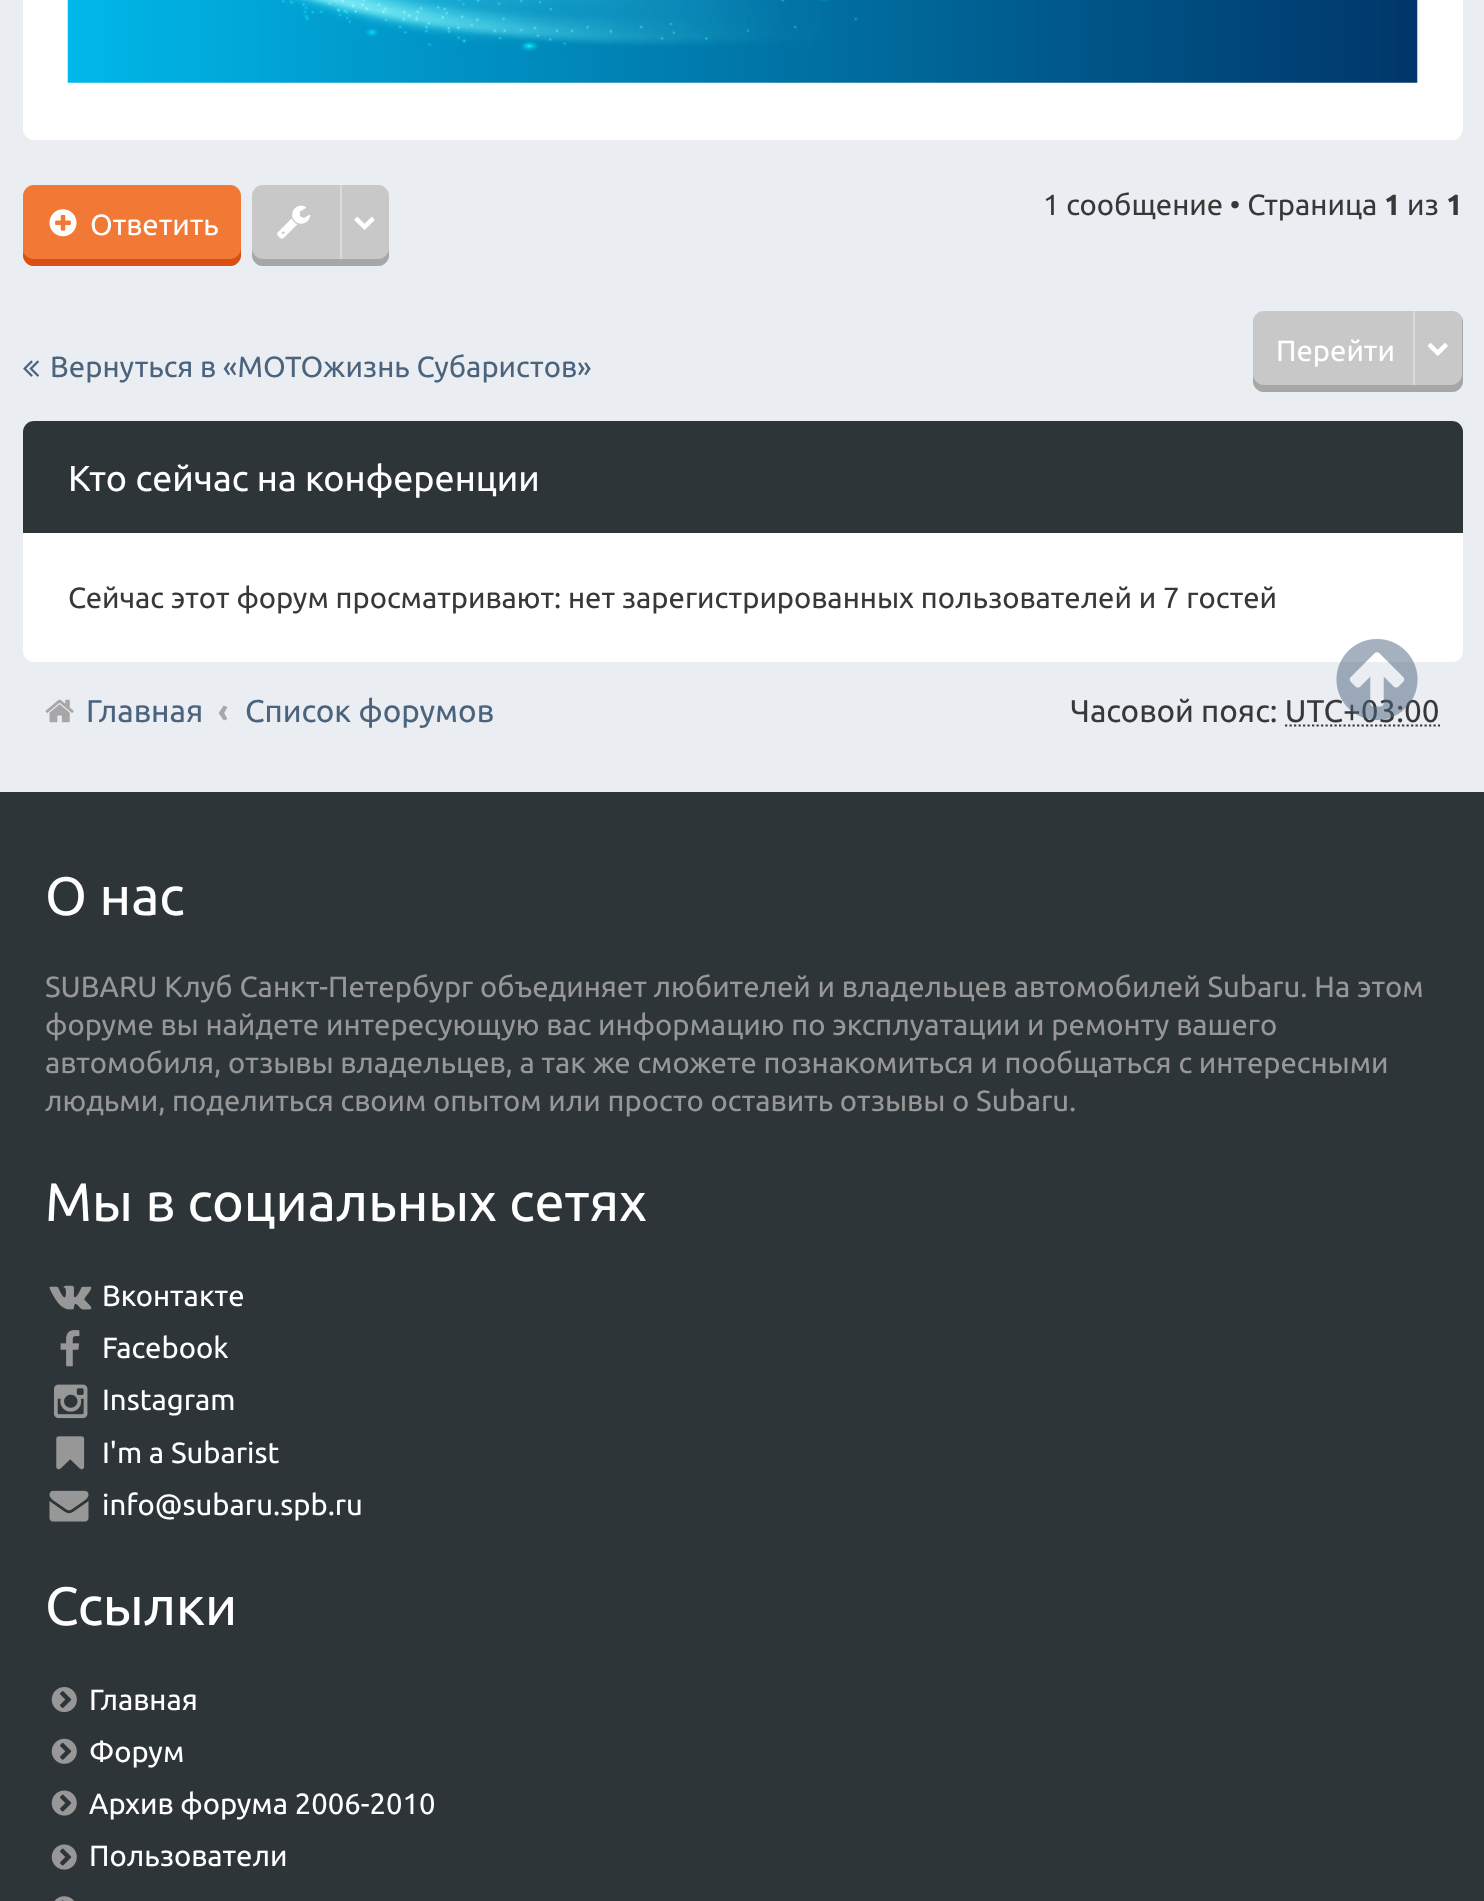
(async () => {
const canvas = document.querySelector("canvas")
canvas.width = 1484
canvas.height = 1901
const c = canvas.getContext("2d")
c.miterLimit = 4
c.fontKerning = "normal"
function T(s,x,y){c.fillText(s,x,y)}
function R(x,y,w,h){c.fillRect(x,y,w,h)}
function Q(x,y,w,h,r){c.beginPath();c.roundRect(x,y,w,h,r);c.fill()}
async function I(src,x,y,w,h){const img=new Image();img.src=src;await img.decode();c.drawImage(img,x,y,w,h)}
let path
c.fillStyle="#eaedf1"
R(0,0,1484,1901)
c.fillStyle="#fff"
Q(23,-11,1440,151,11)
await I("1.png",67,0,1351,83)
c.fillStyle="#c8c8c8"
Q(252,185,137,81,11)
c.fillStyle="#a7a7a7"
path = new Path2D("M252 248v7c0 6 5 11 11 11h115c6 0 11-5 11-11v-7c0 6-5 11-11 11h-115c-6 0-11-5-11-11z")
c.fill(path)
await I("2.png",277,205,34,34)
c.fillStyle="#dadada"
R(340,185,2,74)
await I("3.png",354,217,21,13)
c.font="29.25px Ubuntu"
c.fillStyle="#383838"
T("1 сообщение • Страница",1043,215)
c.font="bold 29.25px Ubuntu"
T("1",1384,215)
c.font="29.25px Ubuntu"
T("из",1407,215)
c.font="bold 29.25px Ubuntu"
T("1",1446,215)
c.fillStyle="#f27935"
Q(23,185,218,81,11)
c.fillStyle="#d94f14"
path = new Path2D("M23 252v3c0 6 5 11 11 11h196c6 0 11-5 11-11v-7c0 6-5 11-11 11h-196c-5 0-9-3-11-7z")
c.fill(path)
await I("4.png",49,209,28,28)
c.font="29.25px Ubuntu"
c.fillStyle="#fff"
T("Ответить",90,235)
await I("5.png",23,360,16,17)
c.fillStyle="#4b637d"
T("Вернуться в «МОТОжизнь Субаристов»",50,377)
c.fillStyle="#c8c8c8"
Q(1253,311,210,81,11)
c.fillStyle="#a7a7a7"
path = new Path2D("M1253 374v7c0 6 5 11 11 11h188c6 0 11-5 11-11v-59l-1-5v57c0 6-5 11-11 11h-187c-6 0-11-5-11-11z")
c.fill(path)
c.fillStyle="#fff"
T("Перейти",1276,361)
c.fillStyle="#dadada"
R(1413,311,2,74)
await I("6.png",1427,343,21,13)
c.fillStyle="#fff"
Q(23,421,1440,241,11)
c.fillStyle="#2e3539"
c.beginPath()
c.roundRect(23,421,1440,112,[11,11,0,0])
c.fill()
c.font="36px Ubuntu"
c.fillStyle="#fff"
T("Кто сейчас на конференции",68,491)
c.font="29.25px Ubuntu"
c.fillStyle="#383838"
T("Сейчас этот форум просматривают: нет зарегистрированных пользователей и 7 гостей",68,608)
c.font="31.5px Ubuntu"
T("Часовой пояс: UTC+03:00",1070,722)
await I("7.png",1336,639,82,81)
await I("8.png",45,699,29,24)
c.fillStyle="#4b637d"
T("Главная",86,722)
c.font="bold 31.5px Ubuntu"
c.fillStyle="#a7a7a7"
T("‹",218,722)
c.font="31.5px Ubuntu"
c.fillStyle="#4b637d"
T("Список форумов",245,722)
path = new Path2D("M1285 725.5h155")
c.strokeStyle="#383838"
c.lineWidth=2.2
c.setLineDash([2.25,2.25])
c.stroke(path)
c.fillStyle="#2e3539"
R(0,792,1484,1109)
c.font="54px Ubuntu"
c.fillStyle="#fff"
T("О нас",45,915)
c.font="29.25px Ubuntu"
c.fillStyle="#979797"
T("SUBARU Клуб Санкт-Петербург объединяет любителей и владельцев автомобилей Subaru. На этом",45,997)
T("форуме вы найдете интересующую вас информацию по эксплуатации и ремонту вашего",45,1035)
T("автомобиля, отзывы владельцев, а так же сможете познакомиться и пообщаться с интересными",45,1073)
T("людьми, поделиться своим опытом или просто оставить отзывы о Subaru.",45,1111)
c.font="54px Ubuntu"
c.fillStyle="#fff"
T("Мы в социальных сетях",45,1221)
await I("9.png",49,1285,43,25)
c.font="29.25px Ubuntu"
T("Вконтакте",102,1306)
await I("10.png",60,1330,20,37)
T("Facebook",102,1358)
await I("11.png",54,1384,34,35)
T("Instagram",102,1410)
await I("12.png",56,1436,29,34)
T("I'm a Subarist",102,1463)
await I("13.png",49,1490,40,32)
T("info@subaru.spb.ru",102,1515)
c.font="54px Ubuntu"
T("Ссылки",45,1625)
await I("14.png",51,1687,26,26)
c.font="29.25px Ubuntu"
T("Главная",89,1710)
await I("15.png",51,1738,26,26)
T("Форум",89,1762)
await I("16.png",51,1790,26,26)
T("Архив форума 2006-2010",89,1814)
await I("16.png",51,1844,26,26)
T("Пользователи",89,1866)
await I("17.png",54,1896,20,5)
})()
